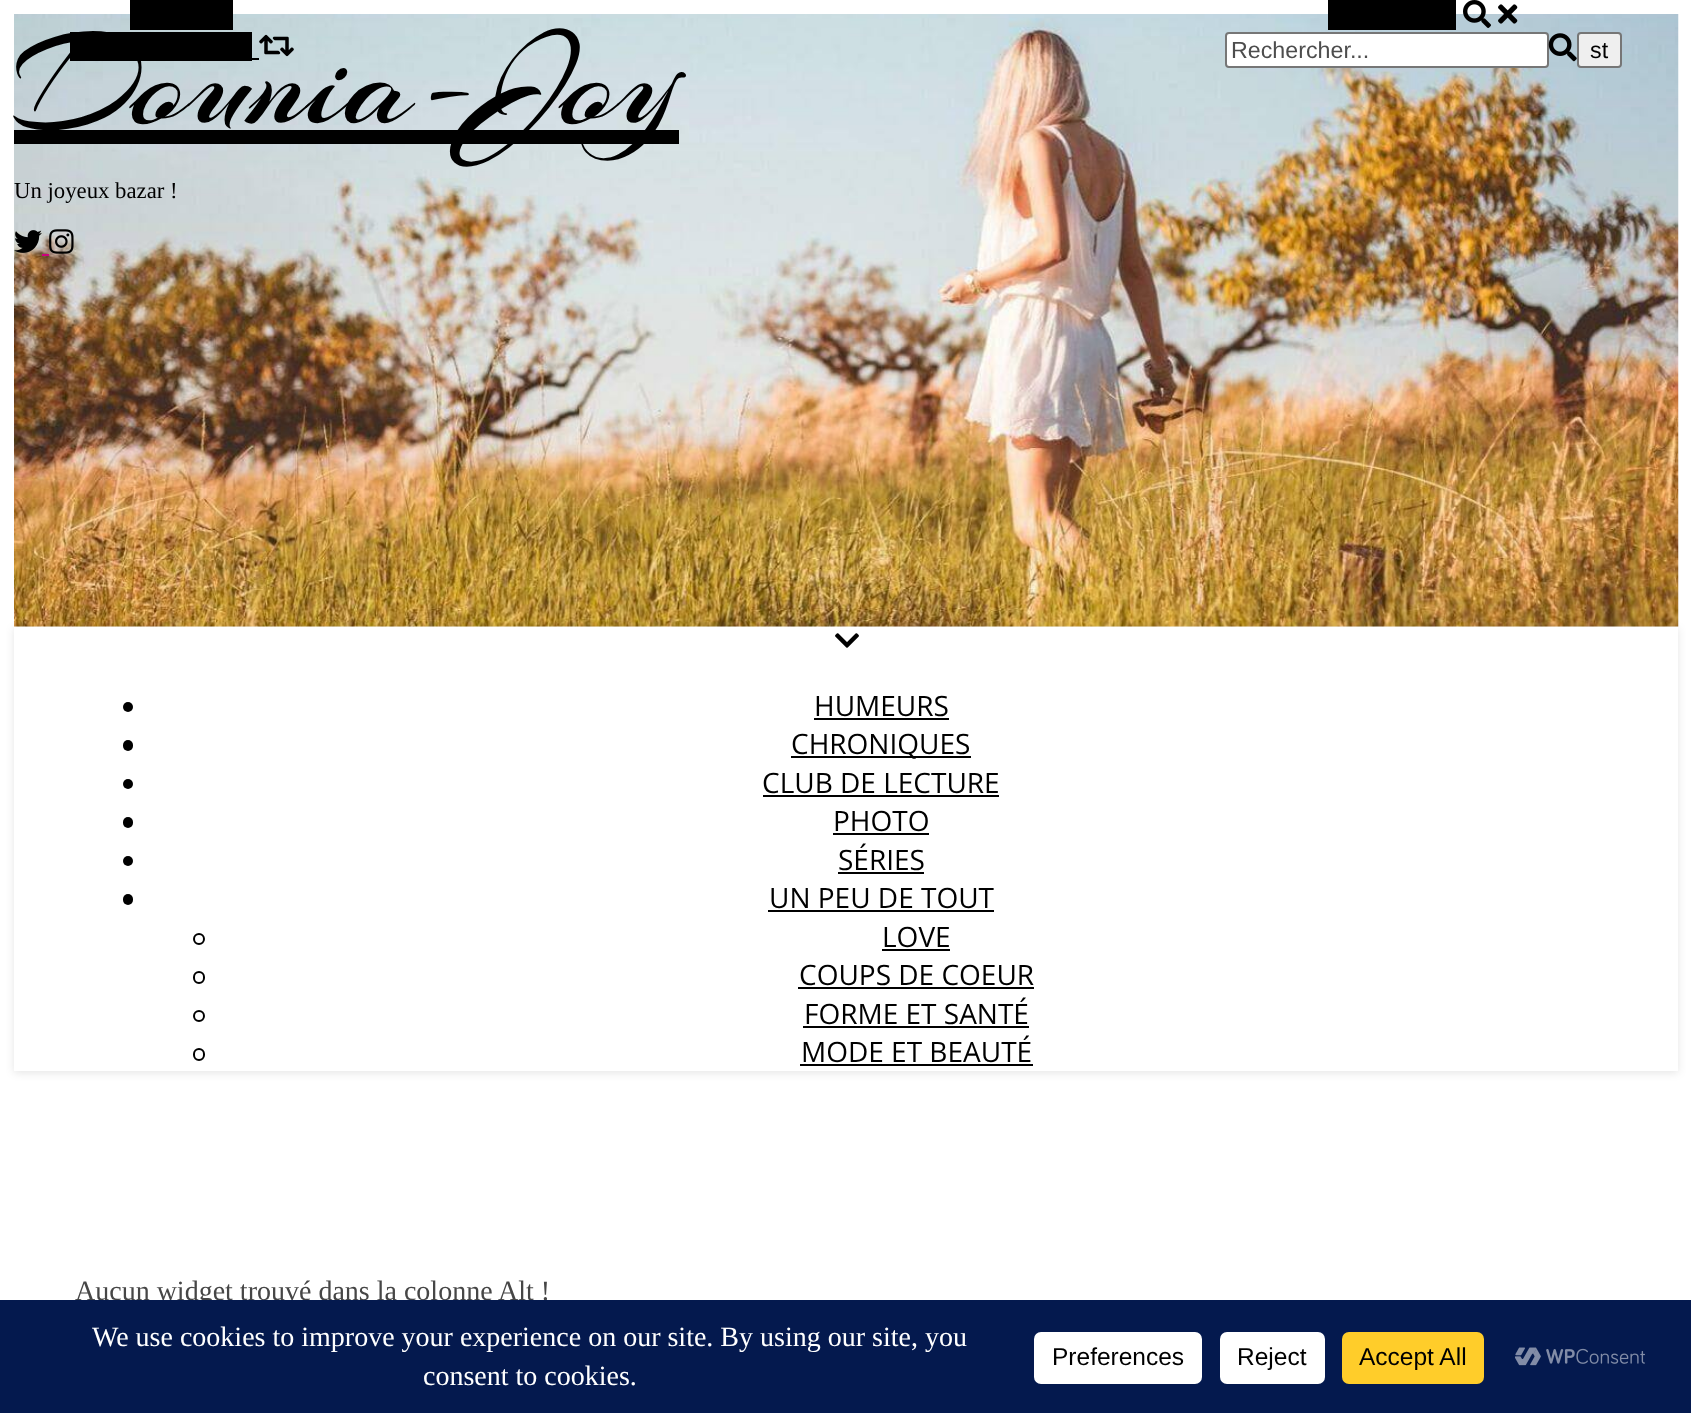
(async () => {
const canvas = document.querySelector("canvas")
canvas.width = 1691
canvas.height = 1413
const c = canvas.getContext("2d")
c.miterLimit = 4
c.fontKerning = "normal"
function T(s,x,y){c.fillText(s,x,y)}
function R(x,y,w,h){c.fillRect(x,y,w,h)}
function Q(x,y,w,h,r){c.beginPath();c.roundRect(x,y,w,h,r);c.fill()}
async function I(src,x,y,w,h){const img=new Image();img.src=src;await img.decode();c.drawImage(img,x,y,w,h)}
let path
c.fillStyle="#fff"
R(0,0,1691,1413)
await I("1.png",14,14,1665,613)
c.fillStyle="#000"
R(14,130,665,14)
c.font="140px Arizonia"
T("Dounia-Joy",14,123)
c.font="22.75px Liberation Serif"
T("Un joyeux bazar !",14,198)
await I("2.png",14,230,28,23)
c.fillStyle="#ce007f"
R(42,254,7,2)
await I("3.png",49,229,25,25)
c.save()
path = new Path2D("M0 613h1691v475h-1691zm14 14h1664v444h-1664z")
c.clip(path,"evenodd")
c.fillStyle="#0000001a"
c.filter="blur(4.5px)"
c.beginPath()
c.rect(14,628,1664,445)
c.fill()
c.filter="none"
c.restore()
c.fillStyle="#000"
R(130,0,103,30)
R(70,32,182,29)
await I("4.png",259,34,35,23)
R(252,58,7,2)
R(1328,0,128,30)
await I("5.png",1463,0,28,28)
await I("6.png",1498,4,20,20)
c.fillStyle="#fff"
c.beginPath()
c.roundRect(1226,33,322,34,3)
c.fill()
c.strokeStyle="#767676"
c.lineWidth=2
c.stroke()
c.font="23.25px Liberation Sans"
c.fillStyle="#4d4d4d"
T("Rechercher...",1231,58)
await I("7.png",1548,33,29,29)
c.fillStyle="#efefef"
c.beginPath()
c.roundRect(1578,33,43,34,3)
c.fill()
c.stroke()
c.fillStyle="#000"
T("st",1590,58)
await I("8.png",835,633,24,15)
c.beginPath()
c.arc(128,707,5,0,7)
c.fill()
c.font="28px Open Sans"
T("HUMEURS",814,716)
R(814,718,135,2)
Q(123,740,10,11,5)
R(791,756,180,2)
T("CHRONIQUES",791,754)
c.beginPath()
c.arc(128,784,5,0,7)
c.fill()
T("CLUB DE LECTURE",762,793)
R(763,795,236,2)
Q(123,817,10,11,5)
T("PHOTO",833,831)
R(833,833,96,2)
c.beginPath()
c.arc(128,861,5,0,7)
c.fill()
T("SÉRIES",838,870)
R(838,872,86,2)
Q(123,894,10,11,5)
T("UN PEU DE TOUT",769,908)
R(768,910,226,2)
c.beginPath()
c.arc(199,939,5,0,7)
c.strokeStyle="#000"
c.stroke()
T("LOVE",882,947)
R(882,949,68,2)
c.beginPath()
c.roundRect(194,972,10,11,5)
c.stroke()
T("COUPS DE COEUR",799,985)
R(798,987,236,2)
c.beginPath()
c.arc(199,1016,5,0,7)
c.stroke()
T("FORME ET SANTÉ",804,1024)
R(803,1026,226,2)
c.beginPath()
c.roundRect(194,1049,10,11,5)
c.stroke()
T("MODE ET BEAUTÉ",801,1062)
R(800,1064,233,2)
c.font="28px Liberation Serif"
c.fillStyle="#464646"
T("Aucun widget trouvé dans la colonne Alt !",75,1300)
c.fillStyle="#04194e"
R(0,1300,1691,113)
c.fillStyle="#fff"
T("We use cookies to improve your experience on our site. By using our site, you",92,1346)
T("consent to cookies.",423,1385)
Q(1034,1332,168,52,7)
c.font="24.5px Liberation Sans"
c.fillStyle="#000"
T("Preferences",1052,1365)
c.fillStyle="#fff"
Q(1220,1332,105,52,7)
c.fillStyle="#000"
T("Reject",1237,1365)
c.fillStyle="#ffcd2a"
Q(1342,1332,142,52,7)
c.fillStyle="#000"
T("Accept All",1359,1365)
await I("9.png",1515,1347,130,19)
})()
